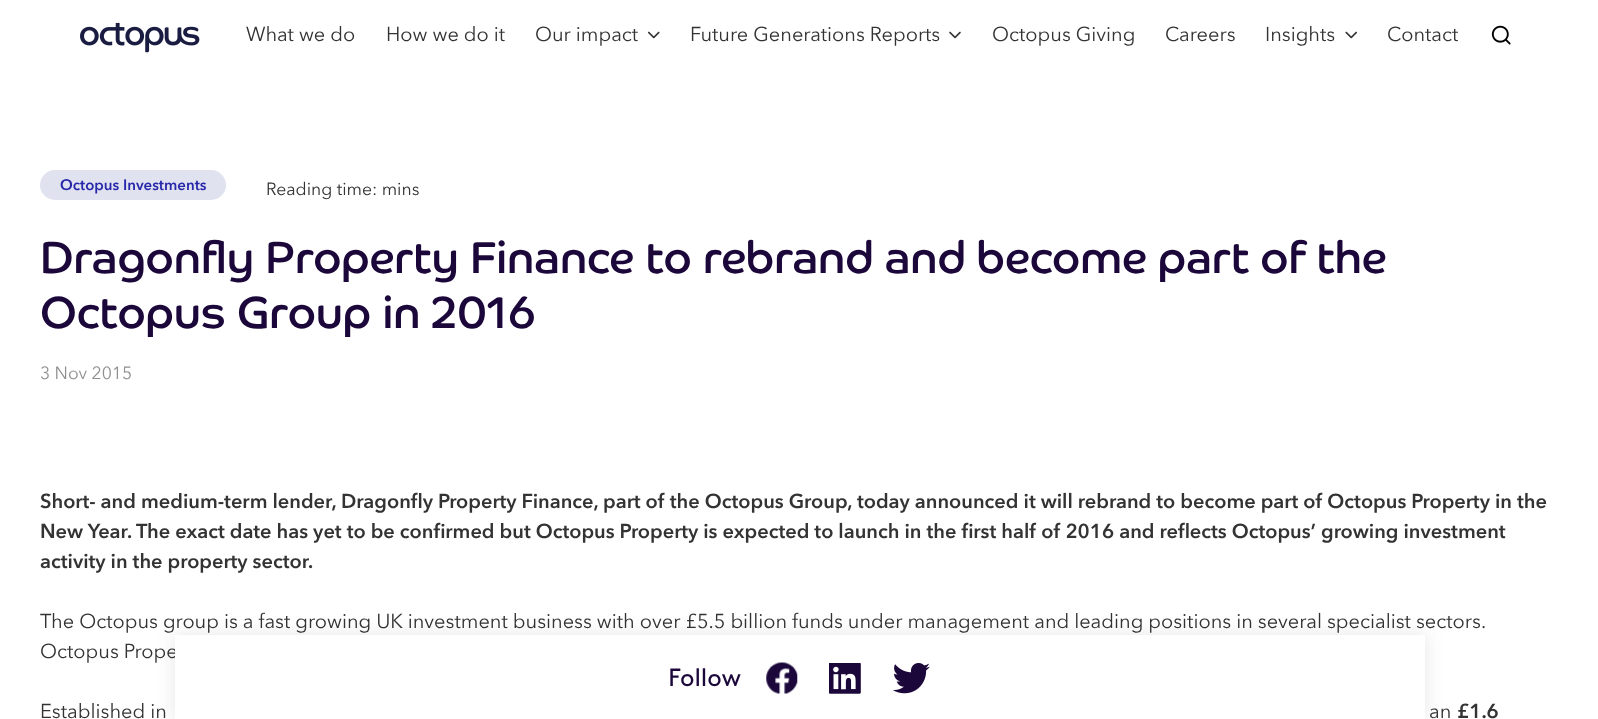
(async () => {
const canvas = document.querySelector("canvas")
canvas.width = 1598
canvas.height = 719
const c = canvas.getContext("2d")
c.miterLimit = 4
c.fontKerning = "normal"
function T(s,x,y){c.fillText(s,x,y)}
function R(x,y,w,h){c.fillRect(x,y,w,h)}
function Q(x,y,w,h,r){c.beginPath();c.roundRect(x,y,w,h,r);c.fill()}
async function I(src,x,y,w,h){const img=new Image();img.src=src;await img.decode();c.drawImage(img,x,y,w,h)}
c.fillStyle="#fff"
R(0,0,1598,719)
await I("1.png",80,22,120,31)
c.font="20px Avenir Next"
c.fillStyle="#333"
T("What we do",246,41)
T("How we do it",386,41)
T("Our impact",535,41)
await I("2.png",648,31,12,8)
T("Future Generations Reports",690,41)
await I("3.png",949,31,12,8)
T("Octopus Giving",992,41)
T("Careers",1165,41)
T("Insights",1265,41)
await I("4.png",1345,31,12,8)
T("Contact",1387,41)
await I("5.png",1491,25,20,20)
c.fillStyle="#e0e2f0"
Q(40,170,186,30,15)
c.font="600 15px Avenir Next"
c.fillStyle="#2828aa"
T("Octopus Investments",60,190)
c.font="17.5px Avenir Next"
c.fillStyle="#333"
T("Reading time: mins",266,195)
c.font="45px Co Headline"
c.fillStyle="#1b073a"
T("Dragonfly Property Finance to rebrand and become part of the",40,273)
T("Octopus Group in 2016",40,328)
c.font="17.5px Avenir Next"
c.fillStyle="#909090"
T("3 Nov 2015",40,379)
c.font="600 20px Avenir Next"
c.fillStyle="#333"
T("Short- and medium-term lender, Dragonfly Property Finance, part of the Octopus Group, today announced it will rebrand to become part of Octopus Property in the",40,508)
T("New Year. The exact date has yet to be confirmed but Octopus Property is expected to launch in the first half of 2016 and reflects Octopus’ growing investment",40,538)
T("activity in the property sector.",40,568)
c.font="20px Avenir Next"
T("The Octopus group is a fast growing UK investment business with over £5.5 billion funds under management and leading positions in several specialist sectors.",40,628)
T("Octopus Prope",40,658)
T("Established in",40,718)
T("an",1429,718)
c.font="600 20px Avenir Next"
T("£1.6",1457,718)
c.fillStyle="#0000001a"
c.filter="blur(9.5px)"
c.beginPath()
c.rect(175,635,1250,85)
c.fill()
c.filter="none"
c.fillStyle="#fff"
R(175,635,1250,84)
c.font="25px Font"
c.fillStyle="#1b073a"
T("Follow",668,686)
await I("6.png",766,662,32,32)
await I("7.png",829,663,32,31)
await I("8.png",893,663,37,31)
})()
